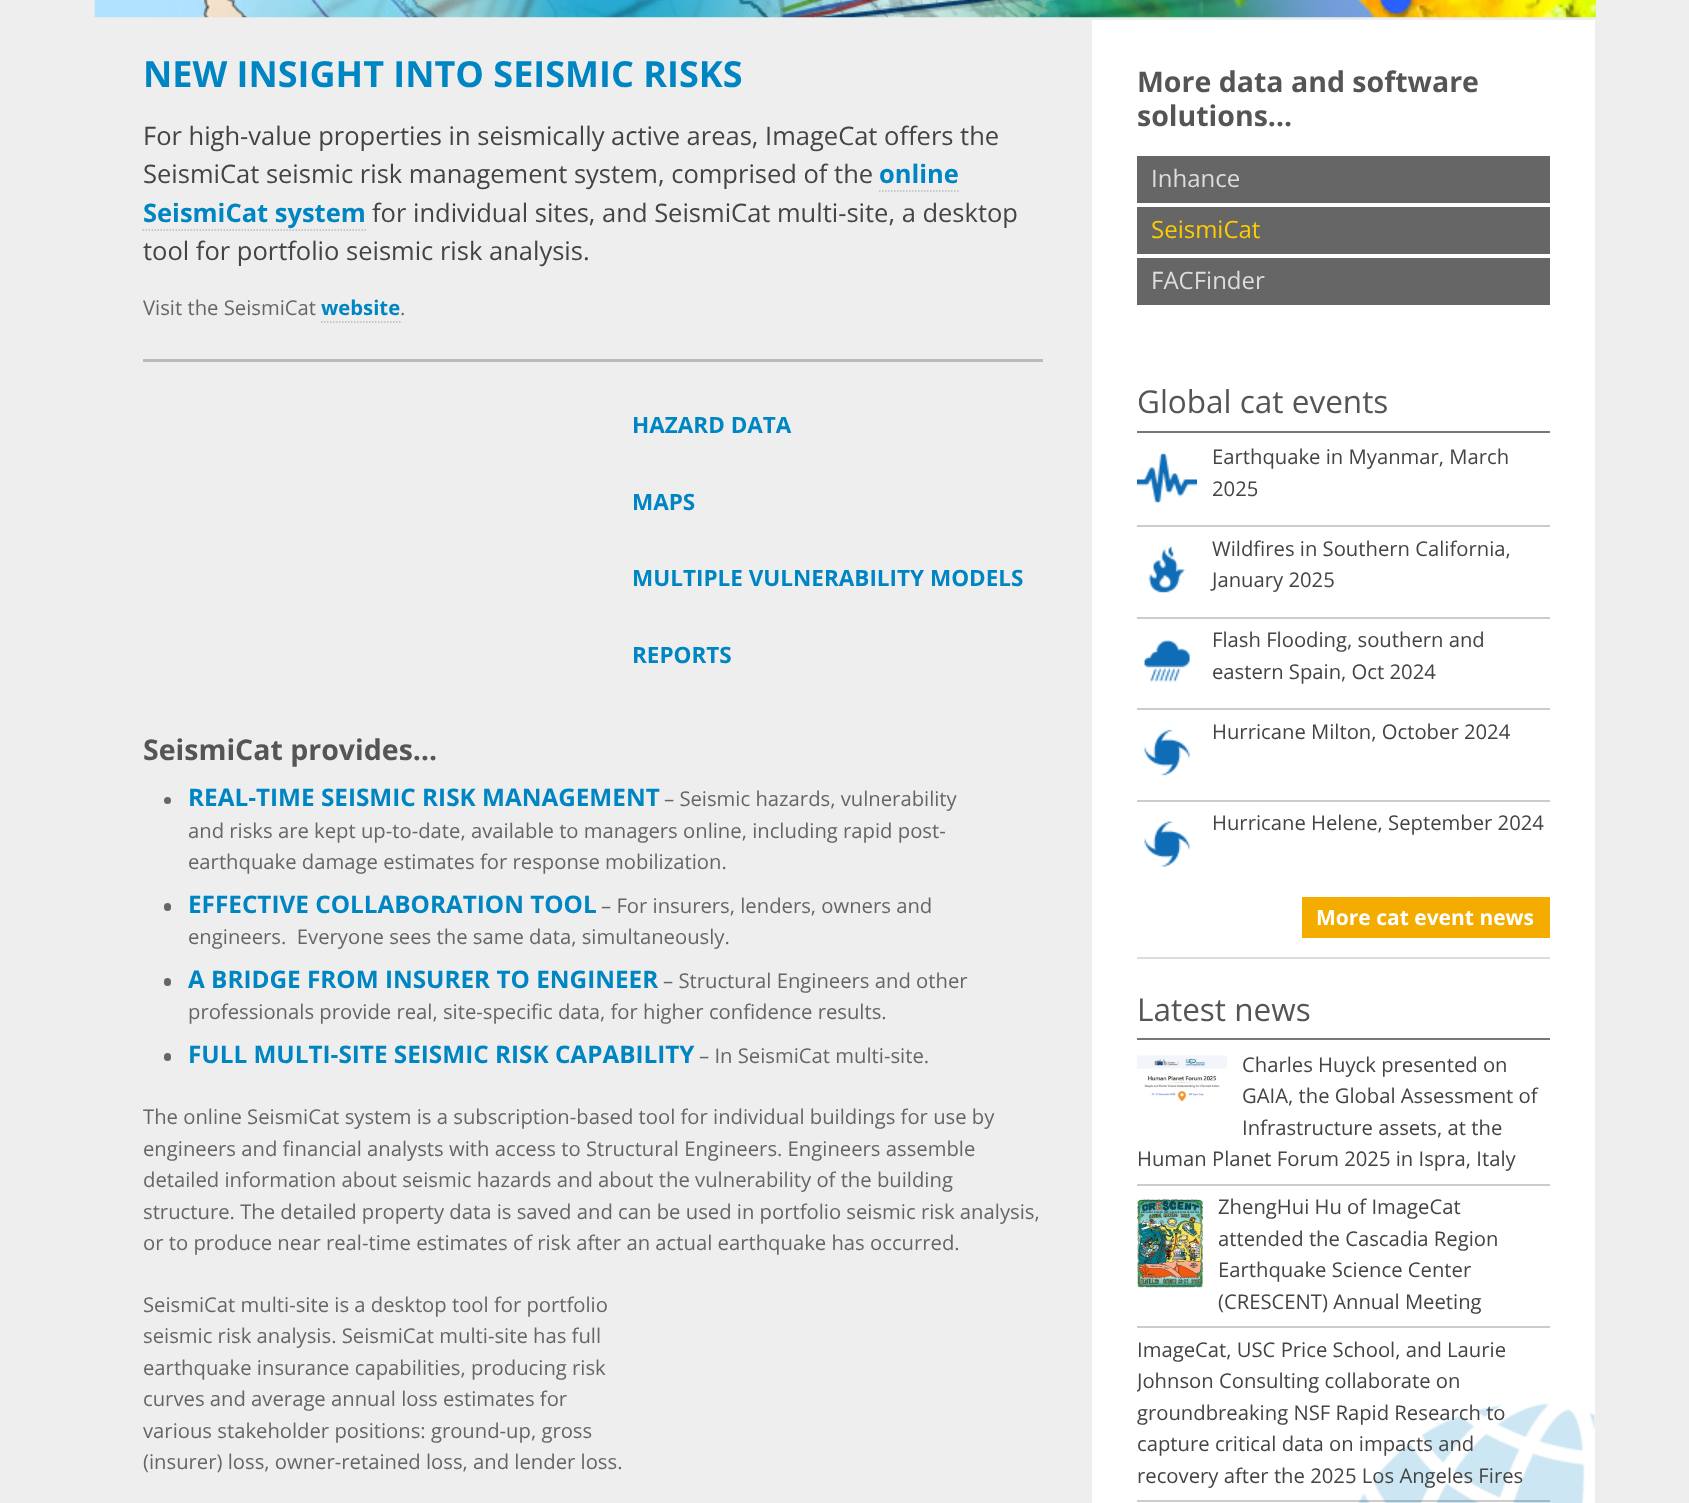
(async () => {
const canvas = document.querySelector("canvas")
canvas.width = 1689
canvas.height = 1503
const c = canvas.getContext("2d")
c.miterLimit = 4
c.fontKerning = "normal"
function T(s,x,y){c.fillText(s,x,y)}
function R(x,y,w,h){c.fillRect(x,y,w,h)}
function Q(x,y,w,h,r){c.beginPath();c.roundRect(x,y,w,h,r);c.fill()}
async function I(src,x,y,w,h){const img=new Image();img.src=src;await img.decode();c.drawImage(img,x,y,w,h)}
let path
c.fillStyle="#eee"
R(0,0,1689,1503)
await I("1.png",94,0,1502,18)
c.font="bold 36px Open Sans"
c.fillStyle="#0085c3"
T("NEW INSIGHT INTO SEISMIC RISKS",143,87)
c.font="25.5px Open Sans"
c.fillStyle="#444"
T("For high-value properties in seismically active areas, ImageCat offers the",143,145)
T("SeismiCat seismic risk management system, comprised of the",143,183)
c.font="bold 25.5px Open Sans"
c.fillStyle="#0085c3"
T("online",879,183)
path = new Path2D("M879 191h79.5")
c.strokeStyle="#bbb"
c.lineWidth=1.5
c.setLineDash([1.5,1.5])
c.stroke(path)
T("SeismiCat system",143,222)
path = new Path2D("M142.5 230h223.5")
c.stroke(path)
c.font="25.5px Open Sans"
c.fillStyle="#444"
T("for individual sites, and SeismiCat multi-site, a desktop",372,222)
T("tool for portfolio seismic risk analysis.",143,260)
c.font="20.25px Open Sans"
c.fillStyle="#666"
T("Visit the SeismiCat",143,315)
c.font="bold 20.25px Open Sans"
c.fillStyle="#0085c3"
T("website",321,315)
path = new Path2D("M321 322h79.5")
c.stroke(path)
c.font="20.25px Open Sans"
c.fillStyle="#666"
T(".",400,315)
c.fillStyle="#bbb"
R(143,359,900,3)
c.font="bold 22.5px Open Sans"
c.fillStyle="#0085c3"
T("HAZARD DATA",632,433)
T("MAPS",632,510)
T("MULTIPLE VULNERABILITY MODELS",632,586)
T("REPORTS",632,663)
c.font="bold 28.5px Open Sans"
c.fillStyle="#555"
T("SeismiCat provides…",143,760)
c.fillStyle="#666"
c.beginPath()
c.arc(167.5,800.5,3.5,0,7)
c.fill()
c.font="bold 24.3px Open Sans"
c.fillStyle="#0085c3"
T("REAL-TIME SEISMIC RISK MANAGEMENT",188,806)
c.font="20.25px Open Sans"
c.fillStyle="#666"
T("– Seismic hazards, vulnerability",664,806)
T("and risks are kept up-to-date, available to managers online, including rapid post-",188,838)
T("earthquake damage estimates for response mobilization.",188,869)
Q(164,903,7,8,3.5)
c.font="bold 24.3px Open Sans"
c.fillStyle="#0085c3"
T("EFFECTIVE COLLABORATION TOOL",188,913)
c.font="20.25px Open Sans"
c.fillStyle="#666"
T("– For insurers, lenders, owners and",601,913)
T("engineers.  Everyone sees the same data, simultaneously.",188,944)
Q(164,978,7,8,3.5)
c.font="bold 24.3px Open Sans"
c.fillStyle="#0085c3"
T("A BRIDGE FROM INSURER TO ENGINEER",188,988)
c.font="20.25px Open Sans"
c.fillStyle="#666"
T("– Structural Engineers and other",663,988)
T("professionals provide real, site-specific data, for higher confidence results.",188,1019)
Q(164,1053,7,8,3.5)
c.font="bold 24.3px Open Sans"
c.fillStyle="#0085c3"
T("FULL MULTI-SITE SEISMIC RISK CAPABILITY",188,1063)
c.font="20.25px Open Sans"
c.fillStyle="#666"
T("– In SeismiCat multi-site.",699,1063)
T("The online SeismiCat system is a subscription-based tool for individual buildings for use by",143,1124)
T("engineers and financial analysts with access to Structural Engineers. Engineers assemble",143,1156)
T("detailed information about seismic hazards and about the vulnerability of the building",143,1187)
T("structure. The detailed property data is saved and can be used in portfolio seismic risk analysis,",143,1219)
T("or to produce near real-time estimates of risk after an actual earthquake has occurred.",143,1250)
T("SeismiCat multi-site is a desktop tool for portfolio",143,1312)
T("seismic risk analysis. SeismiCat multi-site has full",143,1343)
T("earthquake insurance capabilities, producing risk",143,1375)
T("curves and average annual loss estimates for",143,1406)
T("various stakeholder positions: ground-up, gross",143,1438)
T("(insurer) loss, owner-retained loss, and lender loss.",143,1469)
c.fillStyle="#fff"
R(1092,20,503,1483)
await I("2.png",1357,1403,238,100)
c.font="bold 28.5px Open Sans"
c.fillStyle="#555"
T("More data and software",1137,92)
T("solutions…",1137,126)
c.fillStyle="#666"
R(1137,156,413,47)
c.font="24px Open Sans"
c.fillStyle="#ddd"
T("Inhance",1151,187)
c.fillStyle="#666"
R(1137,207,413,47)
c.fillStyle="#fc0"
T("SeismiCat",1151,238)
c.fillStyle="#666"
R(1137,258,413,47)
c.fillStyle="#ddd"
T("FACFinder",1151,289)
R(1137,957,413,2)
c.fillStyle="#777"
R(1137,431,413,2)
c.font="31.5px Open Sans"
c.fillStyle="#555"
T("Global cat events",1137,413)
c.fillStyle="#ccc"
R(1137,525,413,2)
await I("3.png",1137,453,60,50)
c.font="20.25px Open Sans"
c.fillStyle="#444"
T("Earthquake in Myanmar, March",1212,464)
T("2025",1212,496)
c.fillStyle="#ccc"
R(1137,617,413,2)
await I("4.png",1148,546,38,48)
c.fillStyle="#444"
T("Wildfires in Southern California,",1212,556)
T("January 2025",1212,587)
c.fillStyle="#ccc"
R(1137,708,413,2)
await I("5.png",1144,639,46,44)
c.fillStyle="#444"
T("Flash Flooding, southern and",1212,647)
T("eastern Spain, Oct 2024",1212,679)
c.fillStyle="#ccc"
R(1137,800,413,2)
await I("6.png",1144,729,46,47)
c.fillStyle="#444"
T("Hurricane Milton, October 2024",1212,739)
await I("7.png",1144,821,46,46)
T("Hurricane Helene, September 2024",1212,830)
c.fillStyle="#f4ac00"
R(1302,897,248,41)
c.font="bold 21px Open Sans"
c.fillStyle="#fff"
T("More cat event news",1316,925)
c.fillStyle="#777"
R(1137,1038,413,2)
c.font="31.5px Open Sans"
c.fillStyle="#555"
T("Latest news",1137,1021)
c.fillStyle="#ccc"
R(1137,1184,413,2)
await I("8.png",1137,1055,90,47)
c.font="20.25px Open Sans"
c.fillStyle="#444"
T("Charles Huyck presented on",1242,1072)
T("GAIA, the Global Assessment of",1242,1103)
T("Infrastructure assets, at the",1242,1135)
T("Human Planet Forum 2025 in Ispra, Italy",1137,1166)
c.fillStyle="#ccc"
R(1137,1326,413,2)
await I("9.png",1137,1198,66,90)
c.fillStyle="#444"
T("ZhengHui Hu of ImageCat",1218,1214)
T("attended the Cascadia Region",1218,1246)
T("Earthquake Science Center",1218,1277)
T("(CRESCENT) Annual Meeting",1218,1309)
c.fillStyle="#00000033"
R(1137,1500,413,2)
c.fillStyle="#444"
T("ImageCat, USC Price School, and Laurie",1137,1357)
c.save()
c.beginPath()
c.rect(1137,1328,413,172)
c.clip()
T("Johnson Consulting collaborate on",1137,1388)
c.restore()
T("groundbreaking NSF Rapid Research to",1137,1420)
T("capture critical data on impacts and",1137,1451)
T("recovery after the 2025 Los Angeles Fires",1137,1483)
})()
